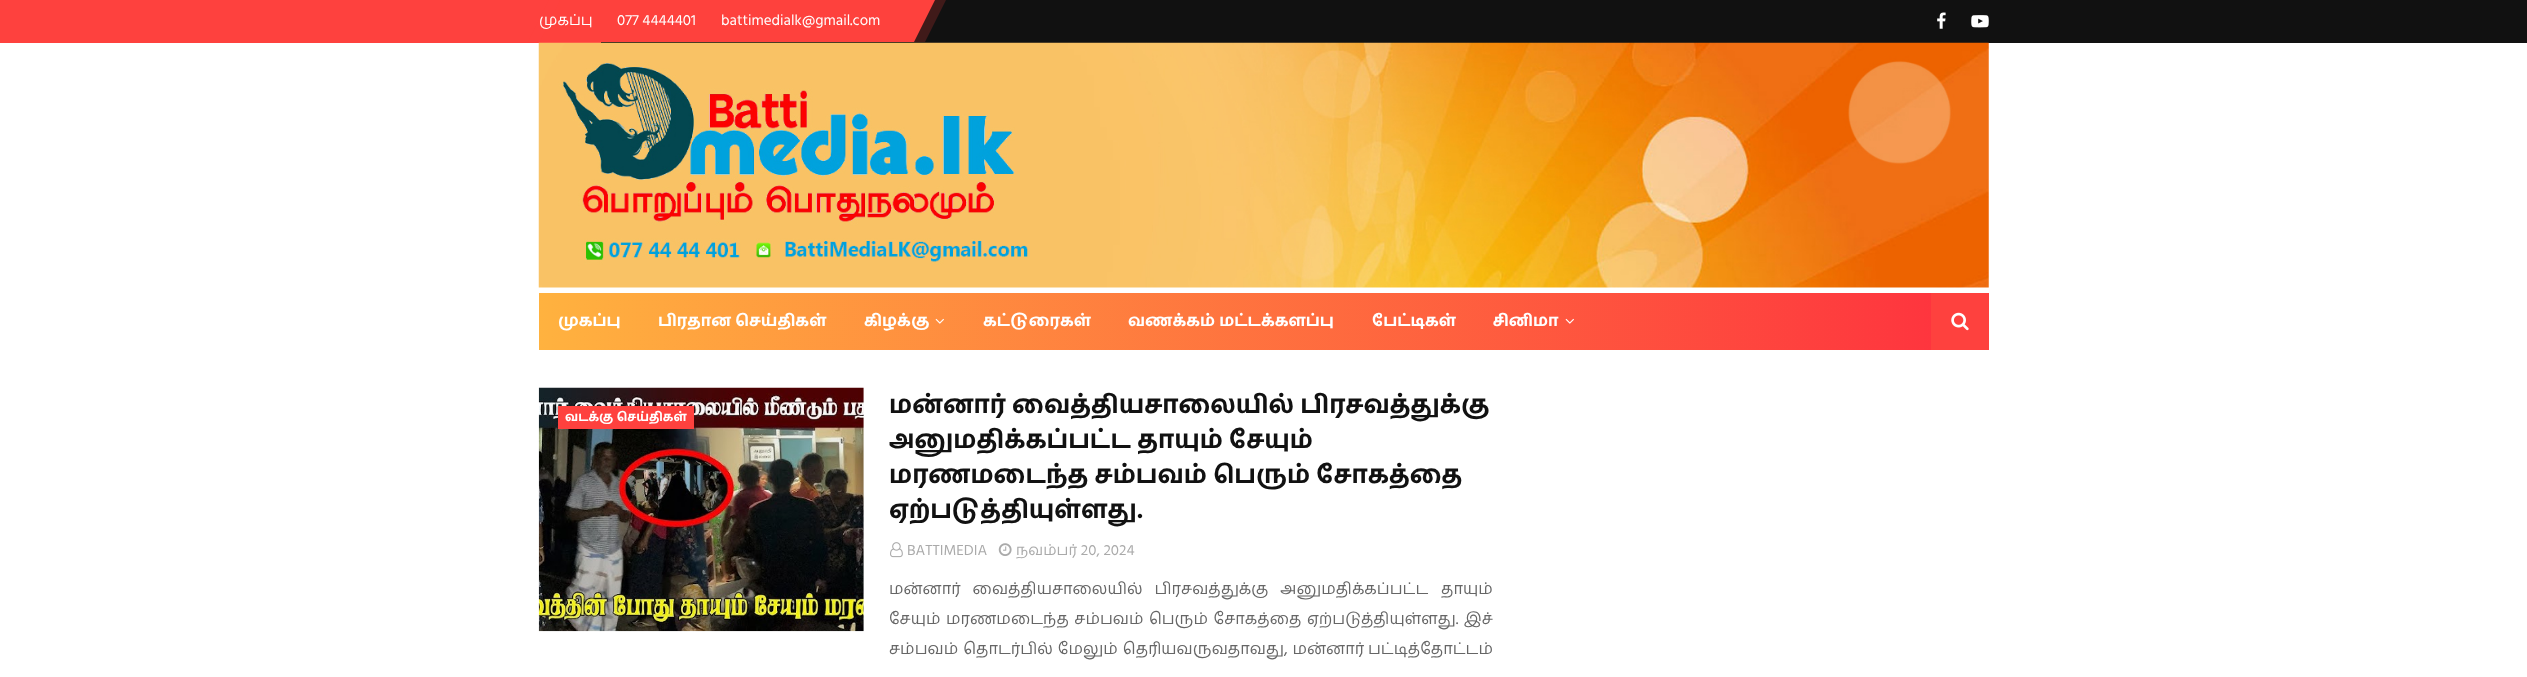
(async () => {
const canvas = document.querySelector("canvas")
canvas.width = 2527
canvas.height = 677
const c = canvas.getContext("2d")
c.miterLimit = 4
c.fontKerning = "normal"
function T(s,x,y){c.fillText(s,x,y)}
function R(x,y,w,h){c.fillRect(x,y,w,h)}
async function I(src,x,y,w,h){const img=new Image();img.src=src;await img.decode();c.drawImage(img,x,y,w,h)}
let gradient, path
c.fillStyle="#fff"
R(0,0,2527,677)
c.fillStyle="#111"
R(601,0,1926,43)
c.fillStyle="#fe413e"
R(0,0,601,43)
path = new Path2D("M549 0h386l-21 42h-386z")
c.fill(path)
c.fillStyle="#fe413e33"
path = new Path2D("M560 0h386l-21 42h-385z")
c.fill(path)
c.font="15px Hind Madurai"
c.fillStyle="#fff"
T("முகப்பு",539,25)
T("077 4444401",617,25)
T("battimedialk@gmail.com",721,25)
await I("1.png",1937,12,9,17)
await I("2.png",1971,15,18,13)
await I("3.png",538,42,1451,246)
gradient = c.createLinearGradient(539,321,1989,321)
gradient.addColorStop(0,"#ffb23f")
gradient.addColorStop(1,"#fe303e")
c.fillStyle = gradient
R(539,293,1392,57)
c.font="bold 16.25px Hind Madurai"
c.fillStyle="#fff"
T("முகப்பு",558,326)
T("பிரதான செய்திகள்",658,326)
T("கிழக்கு",864,326)
await I("4.png",935,318,9,6)
T("கட்டுரைகள்",983,326)
T("வணக்கம் மட்டக்களப்பு",1128,326)
T("பேட்டிகள்",1372,326)
T("சினிமா",1493,326)
await I("5.png",1565,318,9,6)
c.fillStyle="#fe413e"
R(1931,293,58,57)
await I("6.png",1951,312,18,19)
c.fillStyle="#fafafa"
R(863,388,1,243)
await I("7.png",538,387,326,245)
c.fillStyle="#fe413e"
R(558,406,136,23)
c.font="bold 12.5px Hind Madurai"
c.fillStyle="#fff"
T("வடக்கு செய்திகள்",565,421)
c.font="bold 25px Hind Madurai"
c.fillStyle="#111"
T("மன்னார் வைத்தியசாலையில் பிரசவத்துக்கு",889,413)
T("அனுமதிக்கப்பட்ட தாயும் சேயும்",889,448)
T("மரணமடைந்த சம்பவம் பெரும் சோகத்தை",889,483)
T("ஏற்படுத்தியுள்ளது.",889,518)
await I("8.png",890,542,13,16)
c.font="15px Hind Madurai"
c.fillStyle="#aaa"
T("BATTIMEDIA",907,555)
await I("9.png",998,543,14,13)
T("நவம்பர் 20, 2024",1016,555)
c.wordSpacing="8px"
c.font="16.25px Hind Madurai"
c.fillStyle="#666"
T("மன்னார் வைத்தியசாலையில் பிரசவத்துக்கு அனுமதிக்கப்பட்ட",889,594)
c.wordSpacing="0px"
T("தாயும்",1441,594)
c.wordSpacing="1.5px"
T("சேயும் மரணமடைந்த சம்பவம் பெரும் சோகத்தை ஏற்படுத்தியுள்ளது. இச்",889,624)
c.wordSpacing="1px"
T("சம்பவம் தொடர்பில் மேலும் தெரியவருவதாவது, மன்னார்",889,654)
c.wordSpacing="0px"
T("பட்டித்தோட்டம்",1368,654)
})()
